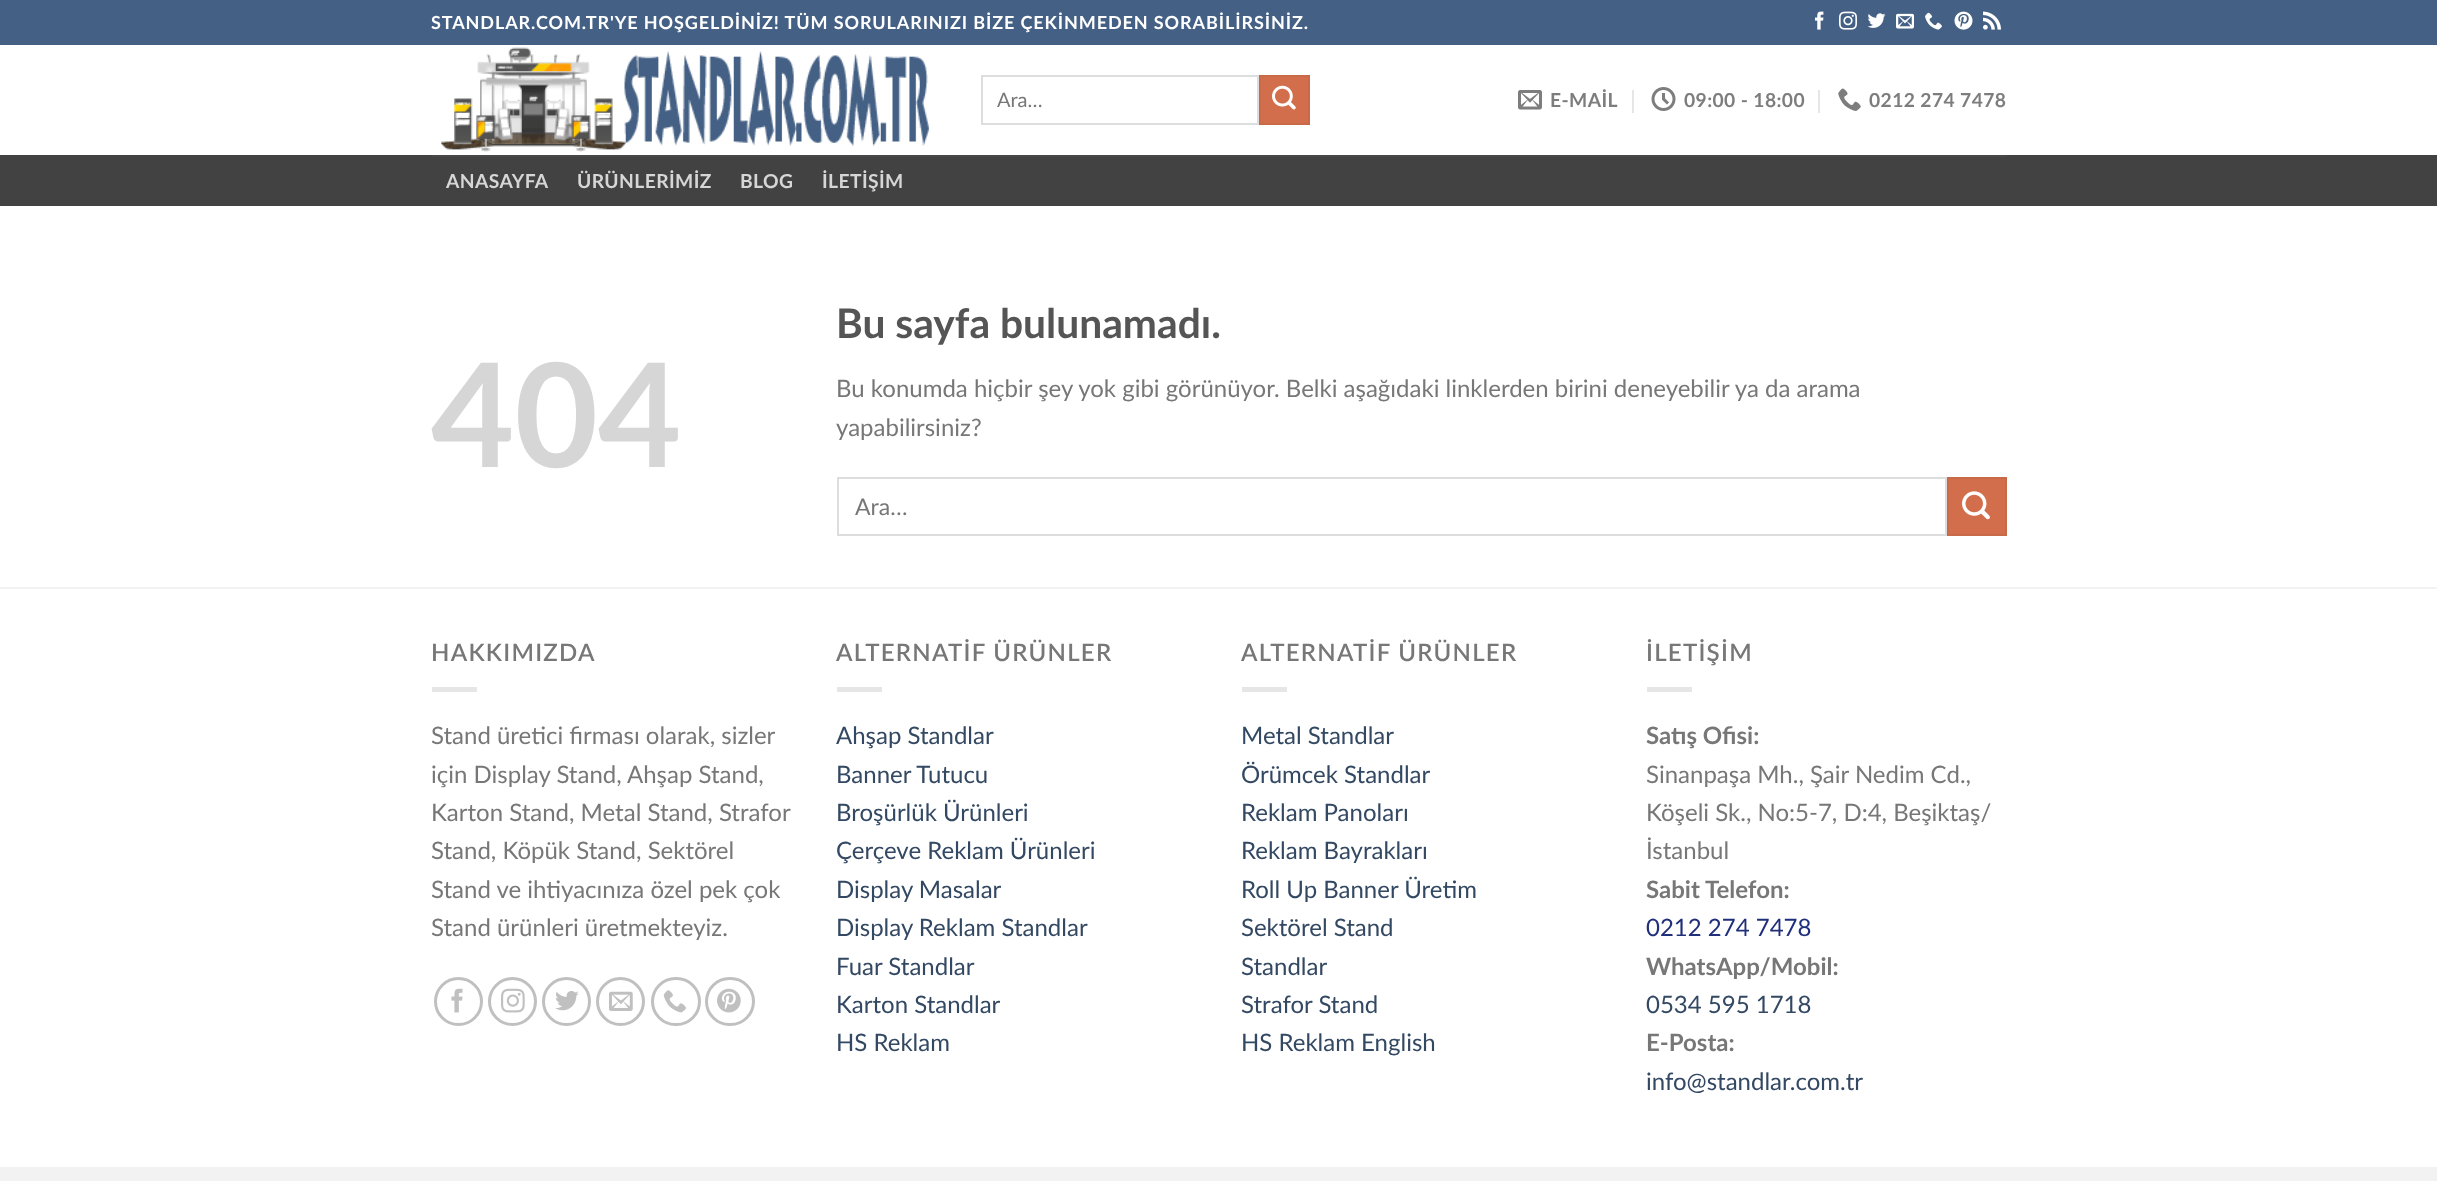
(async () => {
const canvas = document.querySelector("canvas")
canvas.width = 2437
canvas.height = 1181
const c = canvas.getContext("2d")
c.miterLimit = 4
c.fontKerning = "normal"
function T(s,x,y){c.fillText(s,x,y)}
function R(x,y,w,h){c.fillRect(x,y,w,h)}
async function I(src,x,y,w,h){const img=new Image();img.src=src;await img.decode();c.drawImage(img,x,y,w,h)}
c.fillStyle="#fff"
R(0,0,2437,1181)
c.fillStyle="#446084"
R(0,0,2437,45)
c.letterSpacing="0.9px"
c.font="bold 18px Lato"
c.fillStyle="#fff"
T("STANDLAR.COM.TR'YE HOŞGELDİNİZ! TÜM SORULARINIZI BİZE ÇEKİNMEDEN SORABİLİRSİNİZ.",431,29)
await I("1.png",1815,11,9,19)
await I("2.png",1839,11,18,19)
await I("3.png",1867,13,19,15)
await I("4.png",1896,13,18,16)
await I("5.png",1925,12,17,18)
await I("6.png",1954,11,19,19)
await I("7.png",1983,11,18,19)
await I("8.png",441,47,489,105)
c.strokeStyle="#ddd"
c.lineWidth=2
c.strokeRect(982,76,276,48)
c.letterSpacing="0px"
c.font="20px Lato"
c.fillStyle="#777"
T("Ara…",997,107)
c.fillStyle="#d26e4b"
c.beginPath()
c.rect(1260,76,49,48)
c.fill()
c.strokeStyle="#c86947"
c.stroke()
await I("9.png",1272,85,24,25)
await I("10.png",1518,90,24,20)
c.letterSpacing="0.4px"
c.font="bold 19.25px Lato"
c.fillStyle="#7d7d7d"
T("E-MAİL",1550,107)
c.fillStyle="#e6e6e6"
R(1632,90,2,23)
await I("11.png",1651,87,25,24)
c.fillStyle="#7d7d7d"
T("09:00 - 18:00",1684,107)
c.fillStyle="#e6e6e6"
R(1818,90,2,23)
await I("12.png",1838,88,23,23)
c.fillStyle="#7d7d7d"
T("0212 274 7478",1869,107)
c.fillStyle="#424242"
R(0,155,2437,51)
c.fillStyle="#474747"
R(432,155,1575,2)
c.fillStyle="#d6d6d6"
T("ANASAYFA",446,188)
T("ÜRÜNLERİMİZ",577,188)
T("BLOG",740,188)
T("İLETİŞİM",822,188)
c.letterSpacing="0px"
c.font="bold 144px Lato"
T("404",431,467)
c.font="bold 40.75px Lato"
c.fillStyle="#555"
T("Bu sayfa bulunamadı.",836,338)
c.font="24px Lato"
c.fillStyle="#777"
T("Bu konumda hiçbir şey yok gibi görünüyor. Belki aşağıdaki linklerden birini deneyebilir ya da arama",836,397)
T("yapabilirsiniz?",836,436)
c.strokeStyle="#ddd"
c.strokeRect(838,478,1108,57)
c.font="23px Lato"
T("Ara…",855,515)
c.fillStyle="#d26e4b"
c.beginPath()
c.rect(1948,478,58,57)
c.fill()
c.strokeStyle="#c86947"
c.stroke()
await I("13.png",1962,491,28,29)
c.fillStyle="#f2f2f2"
R(0,587,2437,2)
c.letterSpacing="1.25px"
c.font="600 24px Lato"
c.fillStyle="#777"
T("HAKKIMIZDA",431,661)
c.fillStyle="#e6e6e6"
R(432,687,45,5)
c.letterSpacing="0px"
c.font="24px Lato"
c.fillStyle="#777"
T("Stand üretici firması olarak, sizler",431,744)
T("için Display Stand, Ahşap Stand,",431,783)
T("Karton Stand, Metal Stand, Strafor",431,821)
T("Stand, Köpük Stand, Sektörel",431,859)
T("Stand ve ihtiyacınıza özel pek çok",431,898)
T("Stand ürünleri üretmekteyiz.",431,936)
c.beginPath()
c.arc(458.5,1001.5,23,0,7)
c.strokeStyle="#c0c0c0"
c.lineWidth=3
c.stroke()
await I("14.png",451,988,12,25)
c.beginPath()
c.arc(512.5,1001.5,23,0,7)
c.stroke()
await I("15.png",501,988,24,25)
c.beginPath()
c.arc(566.5,1001.5,23,0,7)
c.stroke()
await I("16.png",555,991,24,20)
c.beginPath()
c.arc(620.5,1001.5,23,0,7)
c.stroke()
await I("17.png",609,991,24,20)
c.beginPath()
c.roundRect(652.5,978.5,47,46,23)
c.stroke()
await I("18.png",663,990,23,23)
c.beginPath()
c.roundRect(706.5,978.5,47,46,23)
c.stroke()
await I("19.png",717,988,24,25)
c.letterSpacing="1.25px"
c.font="600 24px Lato"
T("ALTERNATİF ÜRÜNLER",836,661)
c.fillStyle="#e6e6e6"
R(837,687,45,5)
c.letterSpacing="0px"
c.font="24px Lato"
c.fillStyle="#334862"
T("Ahşap Standlar",836,744)
T("Banner Tutucu",836,783)
T("Broşürlük Ürünleri",836,821)
T("Çerçeve Reklam Ürünleri",836,859)
T("Display Masalar",836,898)
T("Display Reklam Standlar",836,936)
T("Fuar Standlar",836,975)
T("Karton Standlar",836,1013)
T("HS Reklam",836,1051)
c.letterSpacing="1.25px"
c.font="600 24px Lato"
c.fillStyle="#777"
T("ALTERNATİF ÜRÜNLER",1241,661)
c.fillStyle="#e6e6e6"
R(1242,687,45,5)
c.letterSpacing="0px"
c.font="24px Lato"
c.fillStyle="#334862"
T("Metal Standlar",1241,744)
T("Örümcek Standlar",1241,783)
T("Reklam Panoları",1241,821)
T("Reklam Bayrakları",1241,859)
T("Roll Up Banner Üretim",1241,898)
T("Sektörel Stand",1241,936)
T("Standlar",1241,975)
T("Strafor Stand",1241,1013)
T("HS Reklam English",1241,1051)
c.letterSpacing="1.25px"
c.font="600 24px Lato"
c.fillStyle="#777"
T("İLETİŞİM",1646,661)
c.fillStyle="#e6e6e6"
R(1647,687,45,5)
c.letterSpacing="0px"
c.font="bold 24px Lato"
c.fillStyle="#777"
T("Satış Ofisi:",1646,744)
c.font="24px Lato"
T("Sinanpaşa Mh., Şair Nedim Cd.,",1646,783)
T("Köşeli Sk., No:5-7, D:4, Beşiktaş/",1646,821)
T("İstanbul",1646,859)
c.font="bold 24px Lato"
T("Sabit Telefon:",1646,898)
c.font="24px Lato"
c.fillStyle="#202f7b"
T("0212 274 7478",1646,936)
c.font="bold 24px Lato"
c.fillStyle="#777"
T("WhatsApp/Mobil:",1646,975)
c.font="24px Lato"
c.fillStyle="#334862"
T("0534 595 1718",1646,1013)
c.font="bold 24px Lato"
c.fillStyle="#777"
T("E-Posta:",1646,1051)
c.font="24px Lato"
c.fillStyle="#334862"
T("info@standlar.com.tr",1646,1090)
c.fillStyle="#f2f2f2"
R(0,1167,2437,14)
})()
